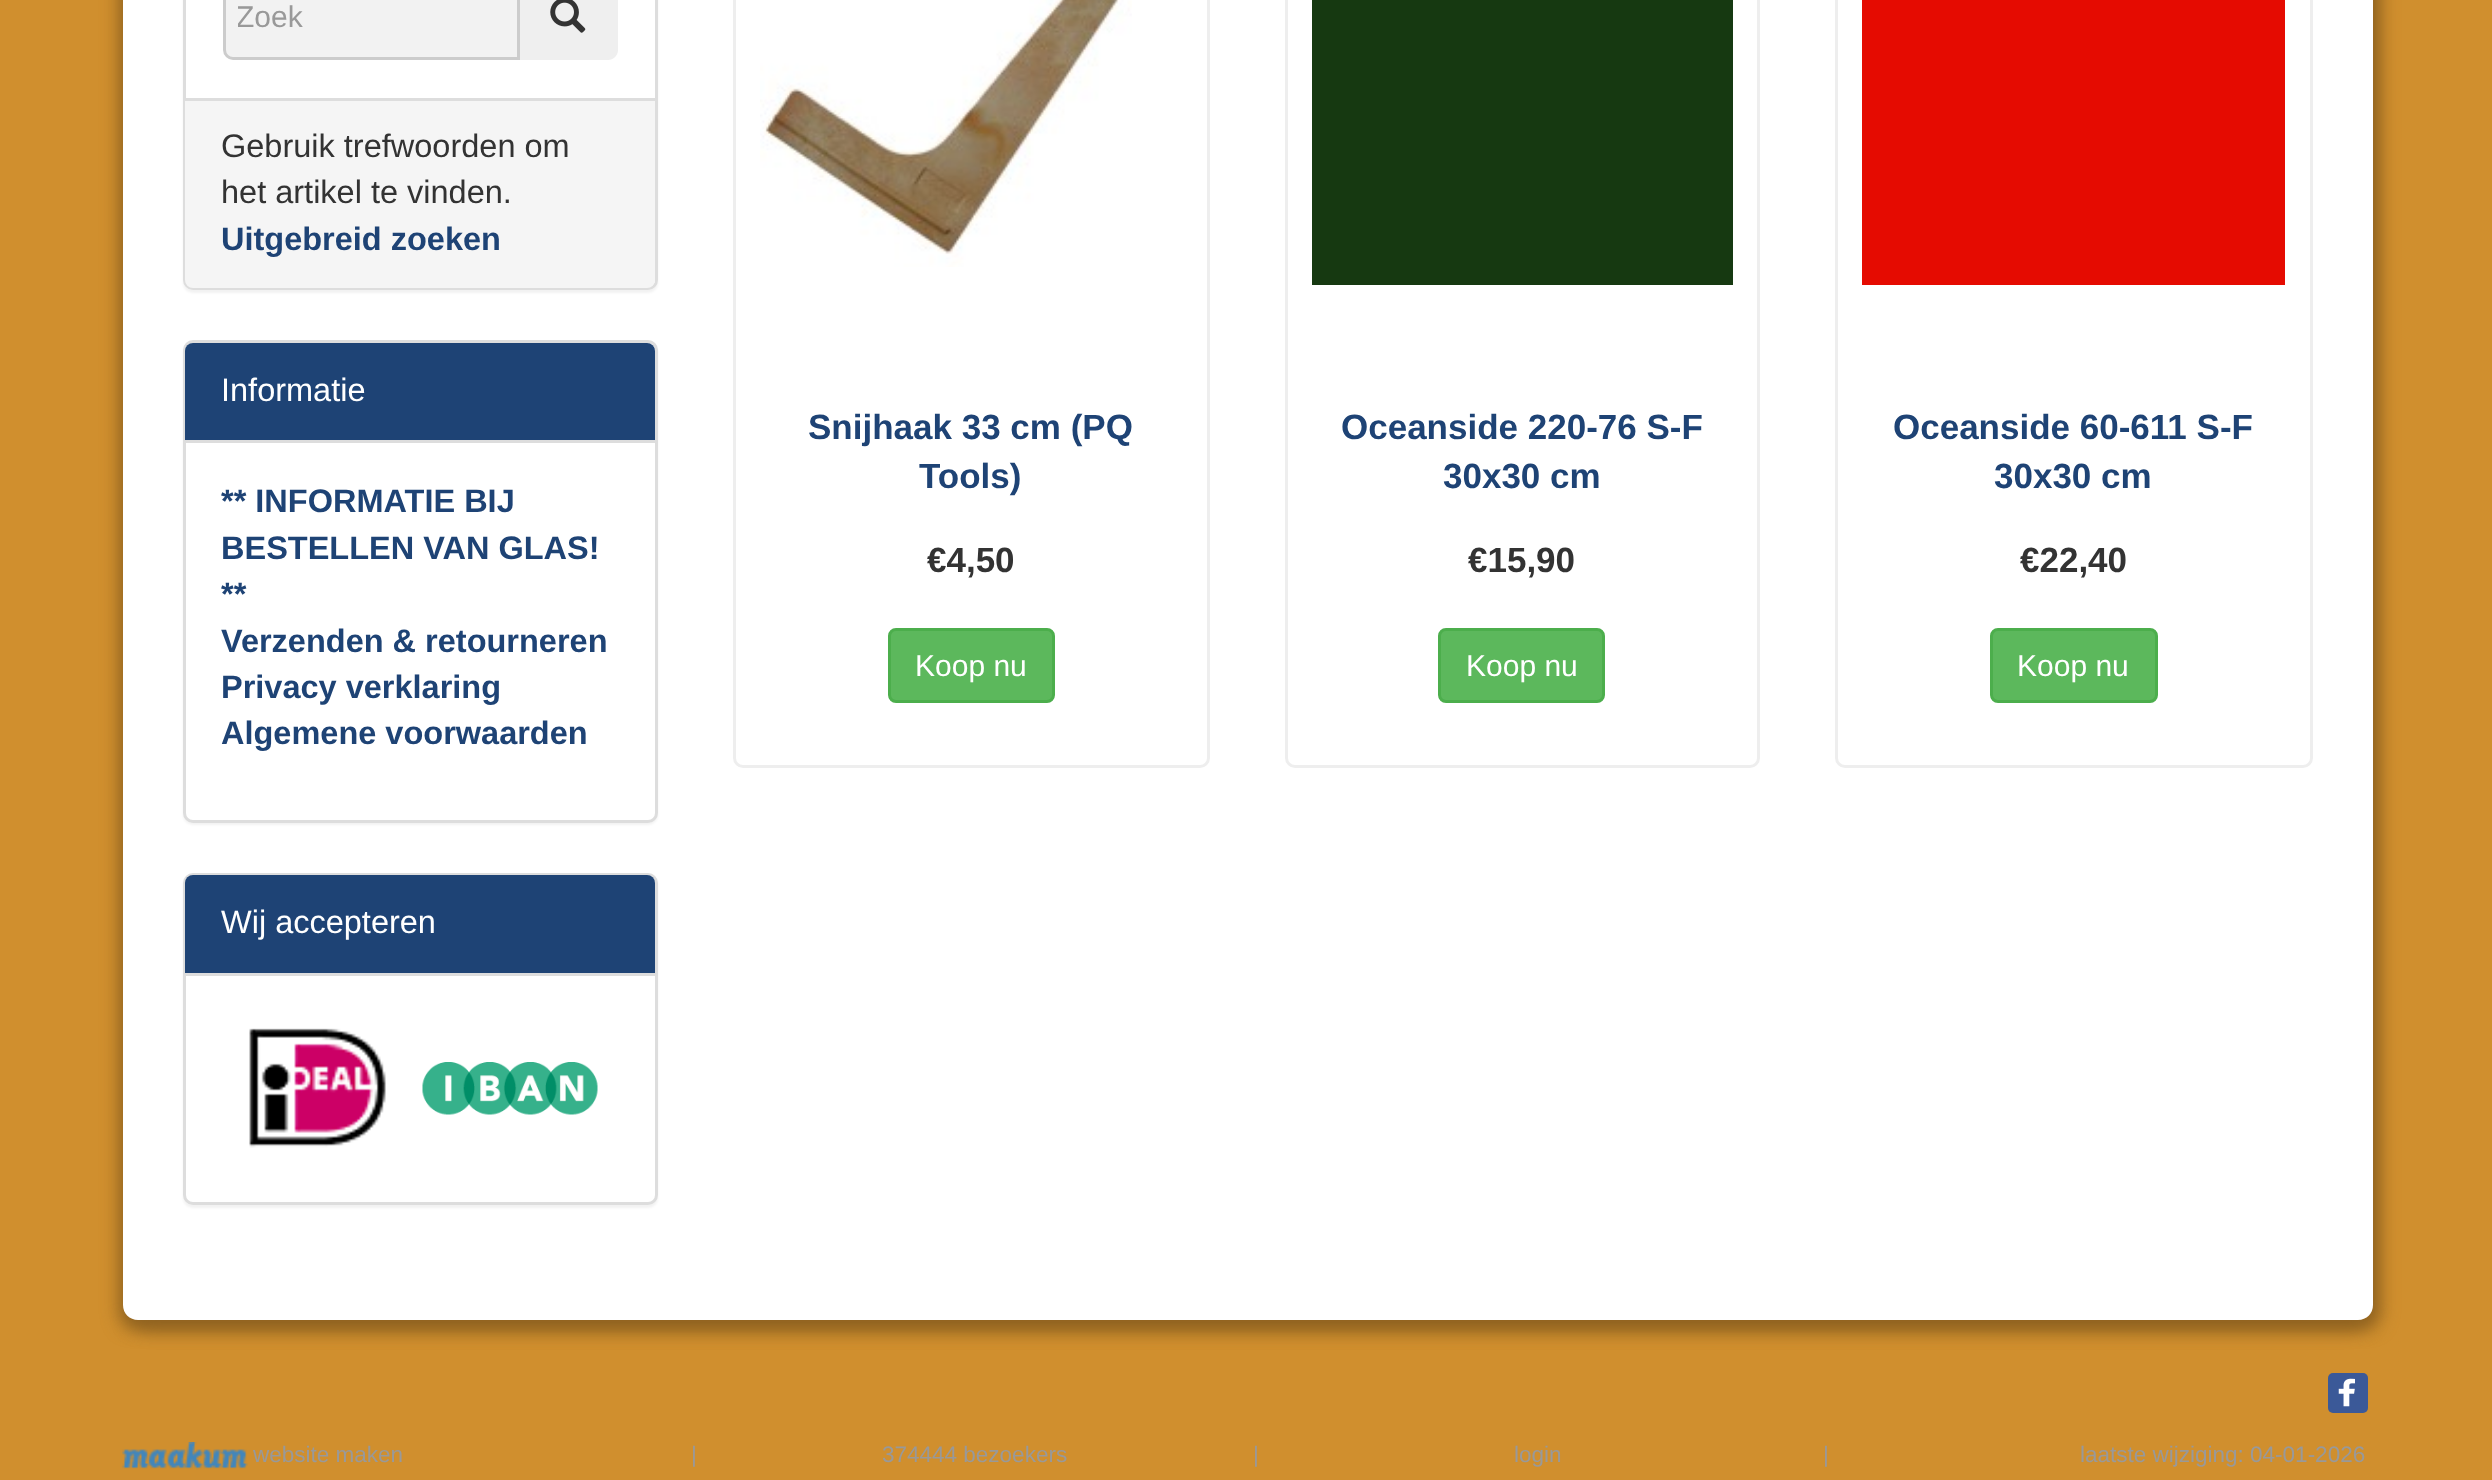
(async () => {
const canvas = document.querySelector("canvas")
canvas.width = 2492
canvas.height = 1480
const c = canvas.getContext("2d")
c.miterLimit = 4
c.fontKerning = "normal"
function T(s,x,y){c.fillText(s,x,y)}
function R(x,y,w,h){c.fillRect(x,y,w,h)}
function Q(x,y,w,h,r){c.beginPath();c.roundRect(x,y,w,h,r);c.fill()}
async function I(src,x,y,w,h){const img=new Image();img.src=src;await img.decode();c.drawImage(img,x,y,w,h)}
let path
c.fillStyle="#d08f2e"
R(0,0,2492,1480)
c.fillStyle="#906320"
c.filter="blur(9px)"
c.beginPath()
c.roundRect(120,-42,2250,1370,15)
c.fill()
c.filter="none"
c.filter="blur(9px)"
c.beginPath()
c.roundRect(130,-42,2250,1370,15)
c.fill()
c.filter="none"
c.fillStyle="#fff"
path = new Path2D("M123-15h2250v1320c0 8.5-6.5 15-15 15h-2220c-8.5 0-15-6.5-15-15z")
c.fill(path)
c.fillStyle="#0000000d"
c.filter="blur(1px)"
c.beginPath()
c.roundRect(183,-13,475,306,10)
c.fill()
c.filter="none"
c.fillStyle="#fff"
c.beginPath()
c.roundRect(184.5,-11.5,472,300,8.5)
c.fill()
c.strokeStyle="#ddd"
c.lineWidth=3
c.stroke()
c.fillStyle="#efefef"
path = new Path2D("M518-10h90c5.5 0 10 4.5 10 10v50c0 5.5-4.5 10-10 10h-90z")
c.fill(path)
c.fillStyle="#f2f2f2"
path = new Path2D("M233-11.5h285.5v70h-285.5c-4.5 0-8.5-4-8.5-8.5v-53c0-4.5 4-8.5 8.5-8.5z")
c.fill(path)
c.strokeStyle="#ccc"
c.stroke(path)
c.save()
c.beginPath()
c.rect(238,0,257,35)
c.clip()
c.font="30px Liberation Sans"
c.fillStyle="#999"
T("Zoek",236,27)
c.restore()
await I("1.png",550,0,36,33)
c.fillStyle="#f5f5f5"
c.beginPath()
c.roundRect(185,98,470,190,[0,0,8,8])
c.fill()
c.fillStyle="#ddd"
R(185,98,470,3)
c.font="32.5px Liberation Sans"
c.fillStyle="#333"
T("Gebruik trefwoorden om",221,157)
T("het artikel te vinden.",221,203)
c.font="bold 32.5px Liberation Sans"
c.fillStyle="#1e4375"
T("Uitgebreid zoeken",221,250)
c.fillStyle="#0000000d"
c.filter="blur(1px)"
c.beginPath()
c.roundRect(183,343,475,482,10)
c.fill()
c.filter="none"
c.fillStyle="#fff"
c.beginPath()
c.roundRect(184.5,341.5,472,480,8.5)
c.fill()
c.strokeStyle="#ddd"
c.stroke()
c.fillStyle="#1e4375"
c.beginPath()
c.roundRect(185,343,470,100,[8,8,0,0])
c.fill()
c.fillStyle="#ddd"
R(185,440,470,3)
c.font="32.5px Liberation Sans"
c.fillStyle="#fff"
T("Informatie",221,401)
c.font="bold 32.5px Liberation Sans"
c.fillStyle="#1e4375"
T("** INFORMATIE BIJ",221,512)
T("BESTELLEN VAN GLAS!",221,559)
T("**",221,605)
T("Verzenden & retourneren",221,652)
T("Privacy verklaring",221,698)
T("Algemene voorwaarden",221,744)
c.fillStyle="#0000000d"
c.filter="blur(1px)"
c.beginPath()
c.roundRect(183,875,475,333,10)
c.fill()
c.filter="none"
c.fillStyle="#fff"
c.beginPath()
c.roundRect(184.5,874.5,472,329,8.5)
c.fill()
c.stroke()
c.fillStyle="#1e4375"
c.beginPath()
c.roundRect(185,875,470,100,[8,8,0,0])
c.fill()
c.fillStyle="#ddd"
R(185,973,470,3)
c.font="32.5px Liberation Sans"
c.fillStyle="#fff"
T("Wij accepteren",221,933)
await I("2.png",249,1028,137,120)
await I("3.png",422,1062,176,53)
c.beginPath()
c.roundRect(734.5,-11.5,474,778,8.5)
c.strokeStyle="#eee"
c.stroke()
await I("4.png",760,0,372,267)
c.font="bold 35px Liberation Sans"
c.fillStyle="#1e4375"
T("Snijhaak 33 cm (PQ",808,439)
T("Tools)",919,488)
c.fillStyle="#333"
T("€4,50",927,572)
c.fillStyle="#5cb85c"
c.beginPath()
c.roundRect(889.5,629.5,164,72,6.5)
c.fill()
c.strokeStyle="#4cae4c"
c.stroke()
c.font="30px Liberation Sans"
c.fillStyle="#fff"
T("Koop nu",915,676)
c.beginPath()
c.roundRect(1286.5,-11.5,472,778,8.5)
c.strokeStyle="#eee"
c.stroke()
c.fillStyle="#163911"
R(1312,0,421,285)
c.font="bold 35px Liberation Sans"
c.fillStyle="#1e4375"
T("Oceanside 220-76 S-F",1341,439)
T("30x30 cm",1443,488)
c.fillStyle="#333"
T("€15,90",1468,572)
c.fillStyle="#5cb85c"
c.beginPath()
c.roundRect(1439.5,629.5,164,72,6.5)
c.fill()
c.strokeStyle="#4cae4c"
c.stroke()
c.font="30px Liberation Sans"
c.fillStyle="#fff"
T("Koop nu",1466,676)
c.beginPath()
c.roundRect(1836.5,-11.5,475,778,8.5)
c.strokeStyle="#eee"
c.stroke()
c.fillStyle="#e50b01"
R(1862,0,423,285)
c.font="bold 35px Liberation Sans"
c.fillStyle="#1e4375"
T("Oceanside 60-611 S-F",1893,439)
T("30x30 cm",1994,488)
c.fillStyle="#333"
T("€22,40",2020,572)
c.fillStyle="#5cb85c"
c.beginPath()
c.roundRect(1991.5,629.5,165,72,6.5)
c.fill()
c.strokeStyle="#4cae4c"
c.stroke()
c.font="30px Liberation Sans"
c.fillStyle="#fff"
T("Koop nu",2017,676)
c.fillStyle="#3b5998"
Q(2328,1373,40,40,5)
await I("5.png",2338,1378,17,29)
await I("6.png",122,1442,126,28)
c.font="22.5px Liberation Sans"
c.fillStyle="#999"
T("website maken",253,1462)
T("|",691,1462)
T("374444 bezoekers",882,1462)
T("|",1253,1462)
T("login",1514,1462)
T("|",1823,1462)
T("laatste wijziging: 04-01-2026",2080,1462)
})()
